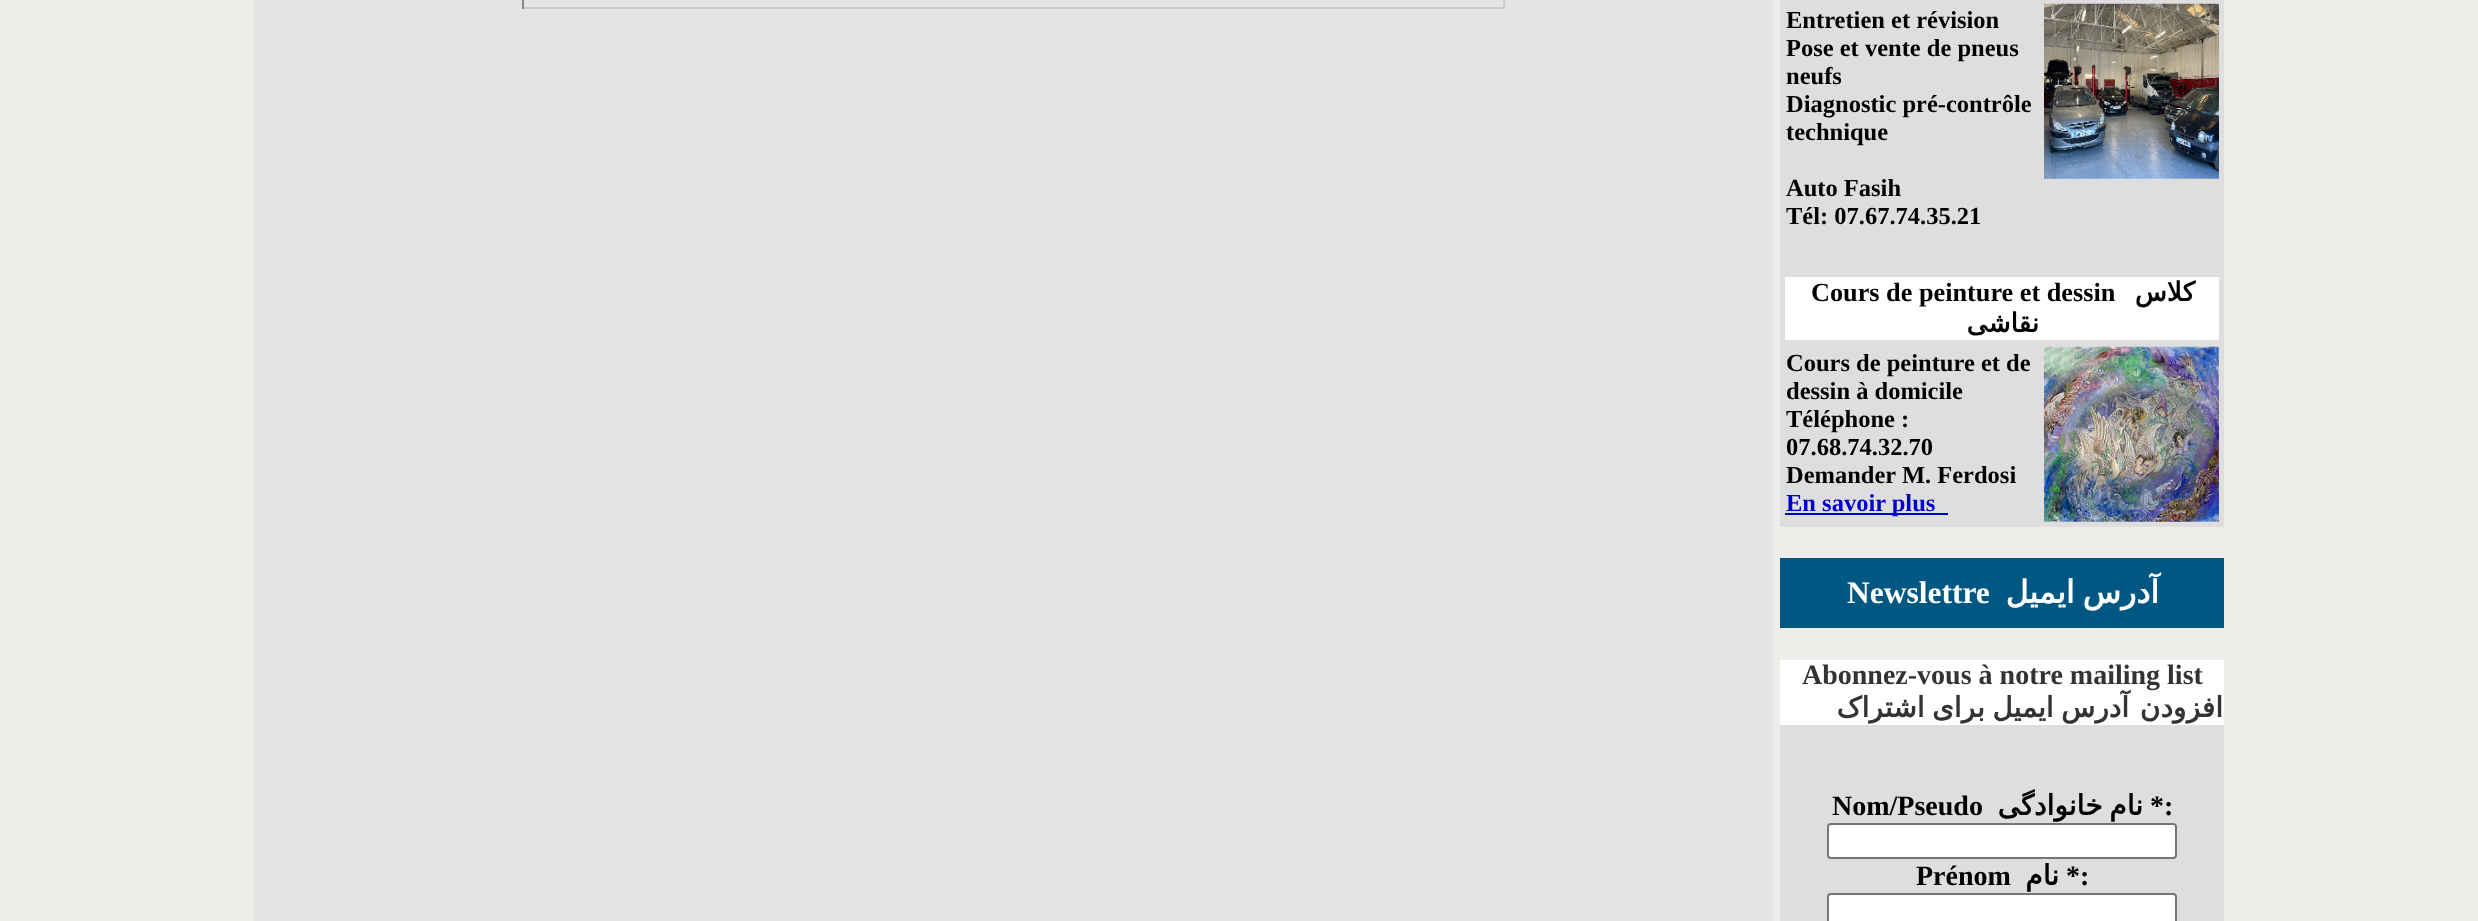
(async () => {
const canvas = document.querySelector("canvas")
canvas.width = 2478
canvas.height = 921
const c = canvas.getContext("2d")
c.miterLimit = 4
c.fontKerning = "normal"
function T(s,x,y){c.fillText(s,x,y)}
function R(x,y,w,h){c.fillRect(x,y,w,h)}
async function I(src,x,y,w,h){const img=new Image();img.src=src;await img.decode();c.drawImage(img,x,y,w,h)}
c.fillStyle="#edeeea"
R(0,0,2478,921)
c.fillStyle="#e4e4e4"
R(254,0,1519,921)
c.fillStyle="#ccc"
R(1503,0,2,9)
R(522,7,983,2)
c.fillStyle="#888"
R(522,0,2,9)
c.fillStyle="#dedede"
R(1780,0,444,527)
c.font="bold 24.5px Liberation Serif"
c.fillStyle="#000"
T("Entretien et révision",1786,28)
T("Pose et vente de pneus",1786,56)
T("neufs",1786,84)
T("Diagnostic pré-contrôle",1786,112)
T("technique",1786,140)
T("Auto Fasih",1786,196)
T("Tél: 07.67.74.35.21",1786,224)
await I("1.png",2044,3,175,176)
c.fillStyle="#fff"
R(1785,277,434,63)
c.font="bold 26.25px Liberation Serif"
c.fillStyle="#000"
T("Cours de peinture et dessin",1811,301)
c.direction="rtl"
c.font="bold 26.25px DejaVu Sans"
T("کلاس",2195,301)
T("نقاشی",2039,332)
c.direction="ltr"
c.font="bold 24.5px Liberation Serif"
T("Cours de peinture et de",1786,371)
T("dessin à domicile",1786,399)
T("Téléphone :",1786,427)
T("07.68.74.32.70",1786,455)
T("Demander M. Ferdosi",1786,483)
c.fillStyle="#00c"
R(1785,513,163,2)
T("En savoir plus",1786,511)
await I("2.png",2044,346,175,176)
c.fillStyle="#005782"
R(1780,558,444,70)
c.font="bold 31.5px Liberation Serif"
c.fillStyle="#fff"
T("Newslettre",1847,603)
c.wordSpacing="-2px"
c.direction="rtl"
c.font="bold 31.5px DejaVu Sans"
T("آدرس ایمیل",2159,603)
c.fillStyle="#dedede"
R(1780,725,444,196)
c.fillStyle="#fff"
R(1780,660,444,65)
c.wordSpacing="0px"
c.direction="ltr"
c.font="bold 28px Liberation Serif"
c.fillStyle="#333"
T("Abonnez-vous à notre mailing list",1802,684)
c.wordSpacing="-1.5px"
c.direction="rtl"
c.font="bold 28px DejaVu Sans"
T("آدرس ایمیل برای اشتراک",2129,717)
c.wordSpacing="0px"
T("افزودن",2223,717)
c.direction="ltr"
c.font="bold 28px Liberation Serif"
c.fillStyle="#000"
T("Nom/Pseudo",1832,815)
c.wordSpacing="-2px"
c.direction="rtl"
c.font="bold 28px DejaVu Sans"
T("نام خانوادگی",2143,815)
c.wordSpacing="0px"
c.direction="ltr"
c.font="bold 28px Liberation Serif"
T("*:",2150,815)
c.fillStyle="#fff"
c.beginPath()
c.roundRect(1828,824,348,34,3)
c.fill()
c.strokeStyle="#767676"
c.lineWidth=2
c.stroke()
c.fillStyle="#000"
T("Prénom",1916,885)
c.direction="rtl"
c.font="bold 28px DejaVu Sans"
T("نام",2059,885)
c.direction="ltr"
c.font="bold 28px Liberation Serif"
T("*:",2066,885)
c.fillStyle="#fff"
c.beginPath()
c.roundRect(1828,894,348,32,3)
c.fill()
c.stroke()
})()
